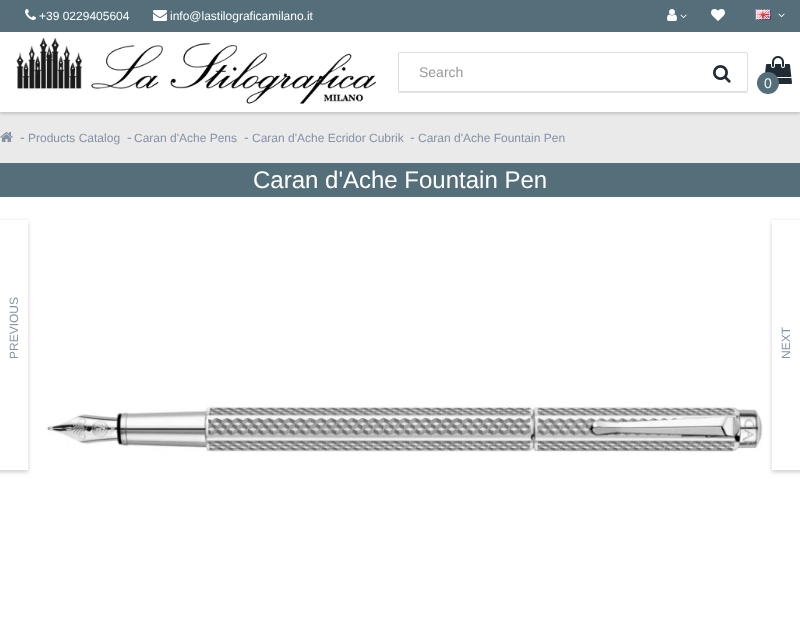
(async () => {
const canvas = document.querySelector("canvas")
canvas.width = 800
canvas.height = 627
const c = canvas.getContext("2d")
c.miterLimit = 4
c.fontKerning = "normal"
function T(s,x,y){c.fillText(s,x,y)}
function R(x,y,w,h){c.fillRect(x,y,w,h)}
async function I(src,x,y,w,h){const img=new Image();img.src=src;await img.decode();c.drawImage(img,x,y,w,h)}
let path
c.fillStyle="#eaeaea"
R(0,0,800,627)
c.fillStyle="#00000029"
c.filter="blur(1.5px)"
c.beginPath()
c.rect(0,2,800,112)
c.fill()
c.filter="none"
c.fillStyle="#546e7a"
R(0,0,800,32)
await I("1.png",25,9,11,11)
c.font="12px Liberation Sans"
c.fillStyle="#fff"
T("+39 0229405604",39,20)
await I("2.png",153,10,14,11)
T("info@lastilograficamilano.it",170,20)
await I("3.png",667,9,10,12)
await I("4.png",680,14,7,5)
await I("5.png",711,9,14,12)
await I("6.png",755,9,16,11)
await I("4.png",778,13,7,5)
R(0,32,800,80)
await I("7.png",16,38,361,66)
c.save()
c.beginPath()
c.rect(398,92,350,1)
c.clip()
c.fillStyle="#0000001a"
c.filter="blur(0.5px)"
c.beginPath()
c.rect(398,53,350,40)
c.fill()
c.filter="none"
c.restore()
c.beginPath()
c.roundRect(398.5,52.5,349,39,1.5)
c.strokeStyle="#ddd"
c.stroke()
c.font="14px Liberation Sans"
c.fillStyle="#999"
T("Search",419,77)
await I("8.png",713,65,18,18)
await I("9.png",765,56,27,28)
c.fillStyle="#546e7a"
c.beginPath()
c.arc(768,83,11,0,7)
c.fill()
c.fillStyle="#f2f7fa"
T("0",764,88)
await I("10.png",0,132,13,10)
c.fillStyle="#8492a6"
T("-",20,142)
c.font="12px Liberation Sans"
T("Products Catalog",28,142)
c.font="14px Liberation Sans"
T("-",127,142)
c.font="12px Liberation Sans"
T("Caran d'Ache Pens",134,142)
c.font="14px Liberation Sans"
T("-",244,142)
c.font="12px Liberation Sans"
T("Caran d'Ache Ecridor Cubrik",252,142)
c.font="14px Liberation Sans"
T("-",410,142)
c.font="12px Liberation Sans"
T("Caran d'Ache Fountain Pen",418,142)
c.fillStyle="#546e7a"
R(0,163,800,34)
c.font="24px Liberation Sans"
c.fillStyle="#fff"
T("Caran d'Ache Fountain Pen",253,188)
c.fillStyle="#ddd"
c.filter="blur(1.5px)"
c.beginPath()
c.rect(2,199,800,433)
c.fill()
c.filter="none"
c.fillStyle="#fff"
R(0,197,800,430)
await I("11.png",46,405,717,48)
c.fillStyle="#fafafa"
R(0,219,28,1)
c.save()
path = new Path2D("M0 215h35v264h-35zm-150 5h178v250h-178z")
c.clip(path,"evenodd")
c.fillStyle="#00000033"
c.filter="blur(2px)"
c.beginPath()
c.rect(-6,222,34,250)
c.fill()
c.filter="none"
c.restore()
c.font="12px Liberation Sans"
c.fillStyle="#8492a6"
c.save()
c.translate(18,359)
c.rotate(-90 * Math.PI / 180)
c.fillText("PREVIOUS",0,0)
c.restore()
c.fillStyle="#fafafa"
R(772,219,28,1)
c.save()
path = new Path2D("M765 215h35v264h-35zm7 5h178v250h-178z")
c.clip(path,"evenodd")
c.fillStyle="#00000033"
c.filter="blur(2px)"
c.beginPath()
c.rect(772,222,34,250)
c.fill()
c.filter="none"
c.restore()
c.fillStyle="#8492a6"
c.save()
c.translate(790,359)
c.rotate(-90 * Math.PI / 180)
c.fillText("NEXT",0,0)
c.restore()
})()
